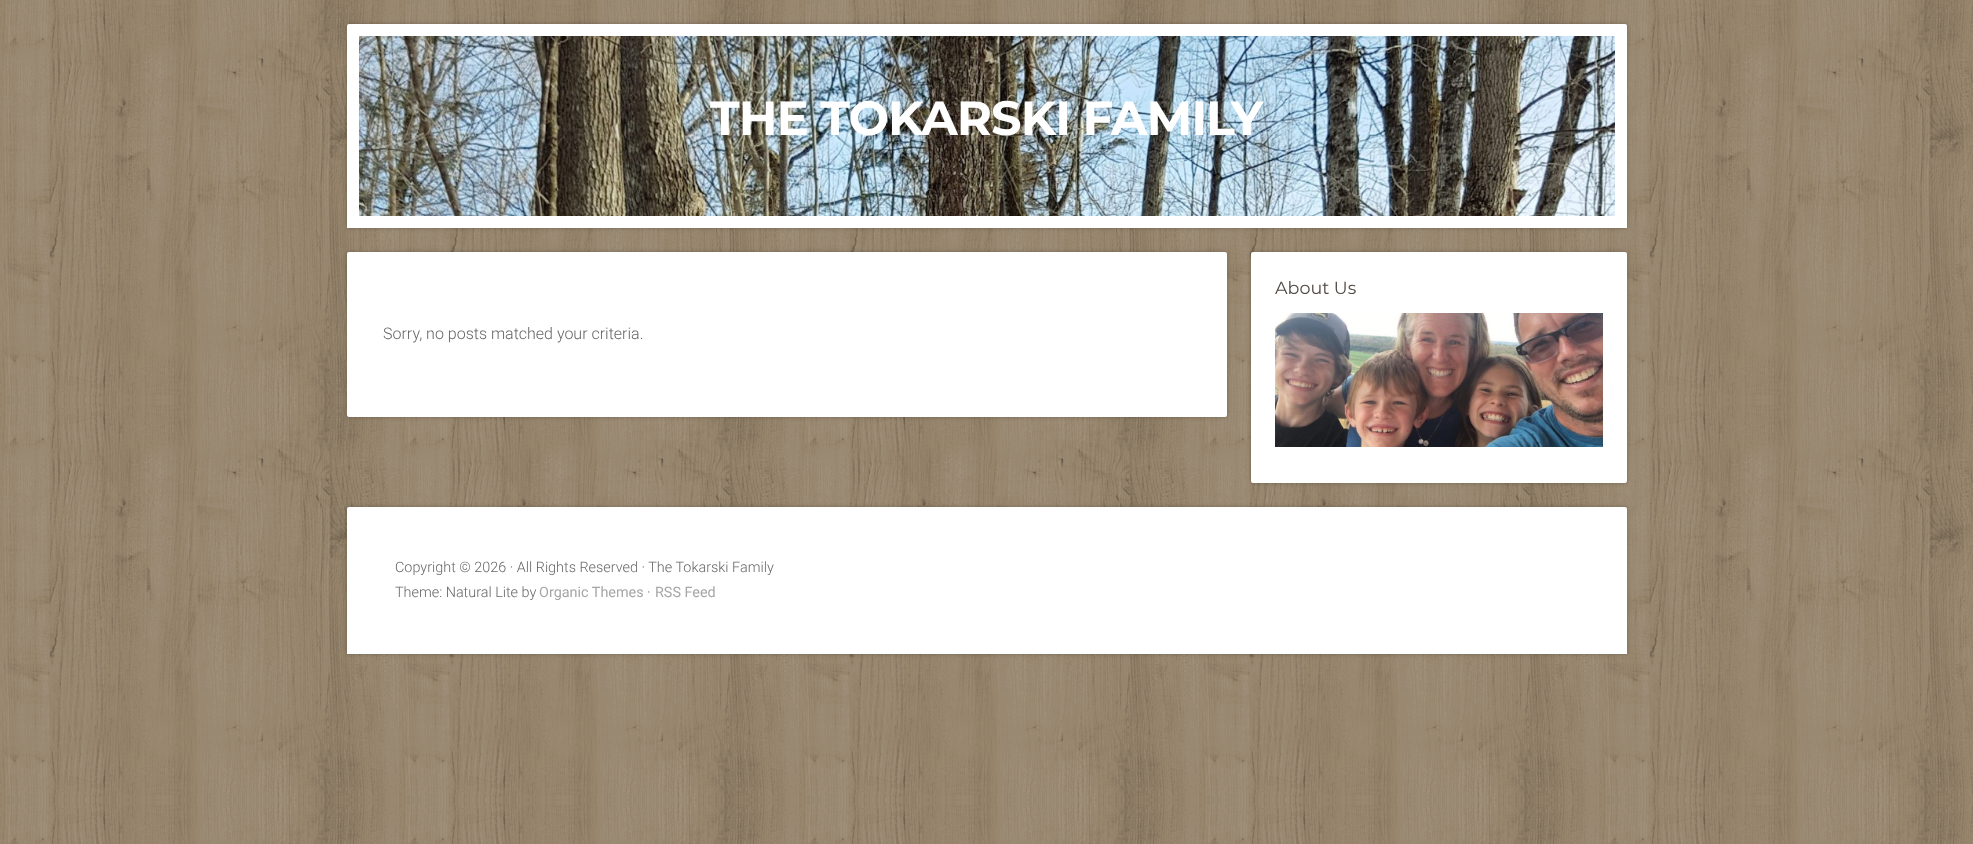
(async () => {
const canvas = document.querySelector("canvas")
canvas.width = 1973
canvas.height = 844
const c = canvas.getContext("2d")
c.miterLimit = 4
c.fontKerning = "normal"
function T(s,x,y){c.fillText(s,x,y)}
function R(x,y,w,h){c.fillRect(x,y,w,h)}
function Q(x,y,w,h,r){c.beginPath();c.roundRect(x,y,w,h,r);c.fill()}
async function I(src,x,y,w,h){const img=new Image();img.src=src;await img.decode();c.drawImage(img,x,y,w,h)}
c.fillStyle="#fff"
R(0,0,1973,844)
await I("1.png",0,0,1973,844)
c.fillStyle="#0000003d"
c.filter="blur(2px)"
c.beginPath()
c.roundRect(347,24,1280,204,2)
c.fill()
c.filter="none"
c.fillStyle="#fff"
c.beginPath()
c.roundRect(347,24,1280,204,[2,2,0,0])
c.fill()
await I("2.png",359,36,1256,180)
c.letterSpacing="-1px"
c.font="bold 48px Montserrat"
T("THE TOKARSKI FAMILY",710,135)
c.fillStyle="#0000003d"
c.filter="blur(2px)"
c.beginPath()
c.roundRect(1251,252,376,231,2)
c.fill()
c.filter="none"
c.fillStyle="#fff"
Q(1251,252,376,231,2)
c.letterSpacing="0px"
c.font="17.5px Montserrat"
c.fillStyle="#504741"
T("About Us",1275,294)
await I("3.png",1275,313,328,134)
c.fillStyle="#0000003d"
c.filter="blur(2px)"
c.beginPath()
c.roundRect(347,252,880,165,2)
c.fill()
c.filter="none"
c.fillStyle="#fff"
Q(347,252,880,165,2)
c.font="300 16px Roboto"
c.fillStyle="#666"
T("Sorry, no posts matched your criteria.",383,339)
c.fillStyle="#0000003d"
c.filter="blur(2px)"
c.beginPath()
c.roundRect(347,507,1280,147,2)
c.fill()
c.filter="none"
c.fillStyle="#fff"
c.beginPath()
c.roundRect(347,507,1280,147,[2,2,0,0])
c.fill()
c.font="300 14.4px Roboto"
c.fillStyle="#666"
T("Copyright © 2026 · All Rights Reserved · The Tokarski Family",395,572)
T("Theme: Natural Lite by",395,597)
c.font="14.4px Roboto"
c.fillStyle="#a6a6a6"
T("Organic Themes",539,597)
c.font="300 14.4px Roboto"
c.fillStyle="#666"
T("·",647,597)
c.font="14.4px Roboto"
c.fillStyle="#a6a6a6"
T("RSS Feed",655,597)
})()
